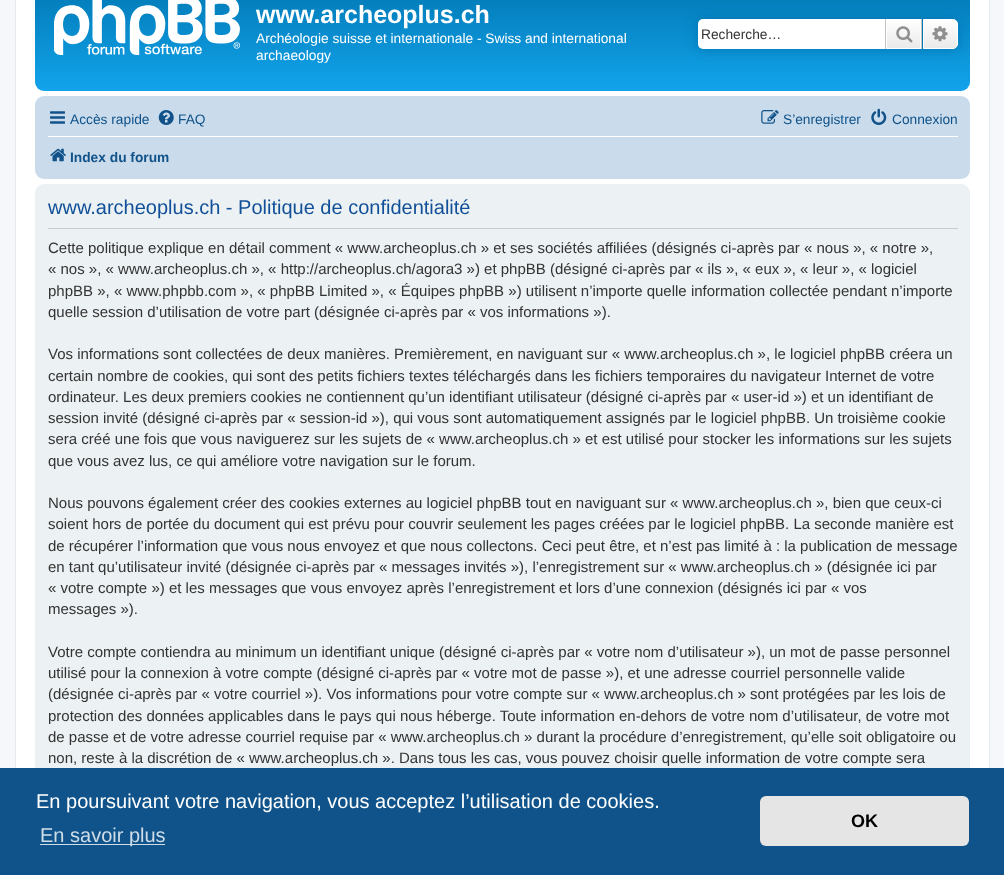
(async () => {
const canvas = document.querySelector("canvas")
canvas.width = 1004
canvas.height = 875
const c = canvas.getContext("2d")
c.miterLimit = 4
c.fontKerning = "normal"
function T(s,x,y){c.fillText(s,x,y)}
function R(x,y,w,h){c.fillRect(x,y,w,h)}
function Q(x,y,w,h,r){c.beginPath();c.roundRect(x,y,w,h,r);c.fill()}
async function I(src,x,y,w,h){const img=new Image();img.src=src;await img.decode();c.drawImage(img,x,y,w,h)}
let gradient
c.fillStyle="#f5f7fa"
R(0,0,1004,875)
c.fillStyle="#fff"
R(16,0,973,768)
c.strokeStyle="#e6e9ed"
c.strokeRect(15.5,-.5,974,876)
gradient = c.createLinearGradient(503,-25,503,91)
gradient.addColorStop(0,"#6aceff")
gradient.addColorStop(.02,"#0076b1")
gradient.addColorStop(.99,"#12a3eb")
gradient.addColorStop(1,"#12a3eb")
c.fillStyle = gradient
Q(35,-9,935,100,9)
await I("1.png",54,0,186,55)
c.font="bold 25px Liberation Sans"
c.fillStyle="#fff"
T("www.archeoplus.ch",256,23)
c.font="13.75px Liberation Sans"
T("Archéologie suisse et internationale - Swiss and international",256,43)
T("archaeology",256,60)
c.fillStyle="#0075b0"
c.filter="blur(6px)"
c.beginPath()
c.roundRect(698,19,260,30,5)
c.fill()
c.filter="none"
c.fillStyle="#fff"
c.beginPath()
c.roundRect(698,19,187,30,[5,0,0,5])
c.fill()
c.fillStyle="#333"
T("Recherche…",701,39)
gradient = c.createLinearGradient(904,19,904,49)
gradient.addColorStop(0,"#fff")
gradient.addColorStop(1,"#e9e9e9")
c.fillStyle = gradient
R(887,20,33,28)
c.strokeStyle="#fff"
c.strokeRect(886.5,19.5,34,29)
c.fillStyle="#c7c3bf"
R(921,19,1,30)
R(885,19,1,30)
await I("2.png",896,26,17,17)
gradient = c.createLinearGradient(940,19,940,49)
gradient.addColorStop(0,"#fff")
gradient.addColorStop(1,"#e9e9e9")
c.fillStyle = gradient
c.beginPath()
c.roundRect(923.5,19.5,34,29,[0,4.5,4.5,0])
c.fill()
c.stroke()
await I("3.png",932,26,16,16)
c.fillStyle="#cadceb"
Q(35,96,935,83,9)
await I("4.png",50,111,15,13)
c.fillStyle="#105289"
T("Accès rapide",70,124)
await I("5.png",158,110,16,15)
T("FAQ",178,124)
await I("6.png",761,110,18,14)
T("S’enregistrer",783,124)
await I("7.png",871,108,16,17)
T("Connexion",892,124)
c.fillStyle="#fff"
R(48,136,910,1)
await I("8.png",50,148,16,14)
c.font="bold 13.75px Liberation Sans"
c.fillStyle="#105289"
T("Index du forum",70,162)
c.fillStyle="#ecf1f3"
Q(35,184,935,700,9)
c.fillStyle="#ccc"
R(48,228,910,1)
c.font="20px Liberation Sans"
c.fillStyle="#115098"
T("www.archeoplus.ch - Politique de confidentialité",48,214)
c.font="15px Liberation Sans"
c.fillStyle="#333"
T("Cette politique explique en détail comment « www.archeoplus.ch » et ses sociétés affiliées (désignés ci-après par « nous », « notre »,",48,253)
T("« nos », « www.archeoplus.ch », « http://archeoplus.ch/agora3 ») et phpBB (désigné ci-après par « ils », « eux », « leur », « logiciel",48,274)
T("phpBB », « www.phpbb.com », « phpBB Limited », « Équipes phpBB ») utilisent n’importe quelle information collectée pendant n’importe",48,296)
T("quelle session d’utilisation de votre part (désignée ci-après par « vos informations »).",48,317)
T("Vos informations sont collectées de deux manières. Premièrement, en naviguant sur « www.archeoplus.ch », le logiciel phpBB créera un",48,359)
T("certain nombre de cookies, qui sont des petits fichiers textes téléchargés dans les fichiers temporaires du navigateur Internet de votre",48,381)
T("ordinateur. Les deux premiers cookies ne contiennent qu’un identifiant utilisateur (désigné ci-après par « user-id ») et un identifiant de",48,402)
T("session invité (désigné ci-après par « session-id »), qui vous sont automatiquement assignés par le logiciel phpBB. Un troisième cookie",48,423)
T("sera créé une fois que vous naviguerez sur les sujets de « www.archeoplus.ch » et est utilisé pour stocker les informations sur les sujets",48,444)
T("que vous avez lus, ce qui améliore votre navigation sur le forum.",48,466)
T("Nous pouvons également créer des cookies externes au logiciel phpBB tout en naviguant sur « www.archeoplus.ch », bien que ceux-ci",48,508)
T("soient hors de portée du document qui est prévu pour couvrir seulement les pages créées par le logiciel phpBB. La seconde manière est",48,529)
T("de récupérer l’information que vous nous envoyez et que nous collectons. Ceci peut être, et n’est pas limité à : la publication de message",48,551)
T("en tant qu’utilisateur invité (désignée ci-après par « messages invités »), l’enregistrement sur « www.archeoplus.ch » (désignée ici par",48,572)
T("« votre compte ») et les messages que vous envoyez après l’enregistrement et lors d’une connexion (désignés ici par « vos",48,593)
T("messages »).",48,614)
T("Votre compte contiendra au minimum un identifiant unique (désigné ci-après par « votre nom d’utilisateur »), un mot de passe personnel",48,657)
T("utilisé pour la connexion à votre compte (désigné ci-après par « votre mot de passe »), et une adresse courriel personnelle valide",48,678)
T("(désignée ci-après par « votre courriel »). Vos informations pour votre compte sur « www.archeoplus.ch » sont protégées par les lois de",48,699)
T("protection des données applicables dans le pays qui nous héberge. Toute information en-dehors de votre nom d’utilisateur, de votre mot",48,721)
T("de passe et de votre adresse courriel requise par « www.archeoplus.ch » durant la procédure d’enregistrement, qu’elle soit obligatoire ou",48,742)
T("non, reste à la discrétion de « www.archeoplus.ch ». Dans tous les cas, vous pouvez choisir quelle information de votre compte sera",48,763)
c.fillStyle="#0f538a"
R(0,768,1004,107)
c.font="20px Liberation Sans"
c.fillStyle="#fff"
T("En poursuivant votre navigation, vous acceptez l’utilisation de cookies.",36,808)
c.fillStyle="#cfdde8"
R(40,844,125,1)
T("En savoir plus",40,842)
c.fillStyle="#e5e5e5"
Q(760,796,209,50,6)
c.font="bold 18px Liberation Sans"
c.fillStyle="#000"
T("OK",851,827)
})()
